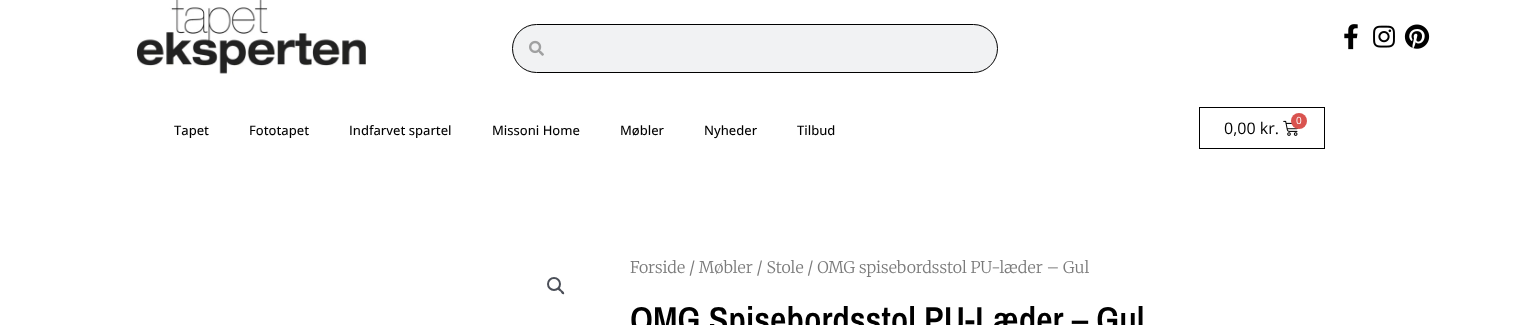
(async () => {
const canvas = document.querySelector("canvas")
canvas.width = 1514
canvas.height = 325
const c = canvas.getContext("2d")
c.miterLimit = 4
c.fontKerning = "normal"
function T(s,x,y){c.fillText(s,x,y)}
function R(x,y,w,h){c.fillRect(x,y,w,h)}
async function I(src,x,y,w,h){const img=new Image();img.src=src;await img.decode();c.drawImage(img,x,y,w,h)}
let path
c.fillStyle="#fff"
R(0,0,1514,325)
await I("1.png",137,0,229,74)
c.fillStyle="#f1f2f3"
c.beginPath()
c.roundRect(512.5,24.5,485,48,24)
c.fill()
c.strokeStyle="#000"
c.stroke()
await I("2.png",529,40,15,16)
await I("3.png",1344,24,14,26)
await I("4.png",1373,25,22,23)
await I("5.png",1404,24,26,25)
c.font="500 13px Open Sans"
c.fillStyle="#000"
T("Tapet",174,135)
T("Fototapet",249,135)
T("Indfarvet spartel",349,135)
T("Missoni Home",492,135)
T("Møbler",620,135)
T("Nyheder",704,135)
T("Tilbud",797,135)
c.strokeRect(1199.5,107.5,125,41)
c.font="16px Open Sans"
T("0,00 kr.",1224,134)
await I("6.png",1283,120,16,16)
c.fillStyle="#d9534f"
c.beginPath()
c.arc(1299,121,8,0,7)
c.fill()
c.font="10px Open Sans"
c.fillStyle="#fff"
T("0",1296,124)
c.beginPath()
c.arc(554,284,6,0,7)
c.strokeStyle="#4b4f58"
c.lineWidth=2
c.stroke()
c.fillStyle="#4b4f58"
path = new Path2D("M558 288c1.5-1 3 1.5 3.5 2c1 1 3.5 2.5 2.5 4c-1.5 1-3-1.5-3.5-2.5c-1-.5-3.5-2-2.5-3.5z")
c.fill(path)
c.font="300 16px Merriweather"
c.fillStyle="#7a7a7a"
T("Forside / Møbler / Stole / OMG spisebordsstol PU-læder – Gul",630,273)
c.font="600 36px Archivo Narrow"
c.fillStyle="#000"
T("OMG Spisebordsstol PU-Læder – Gul",630,332)
})()
